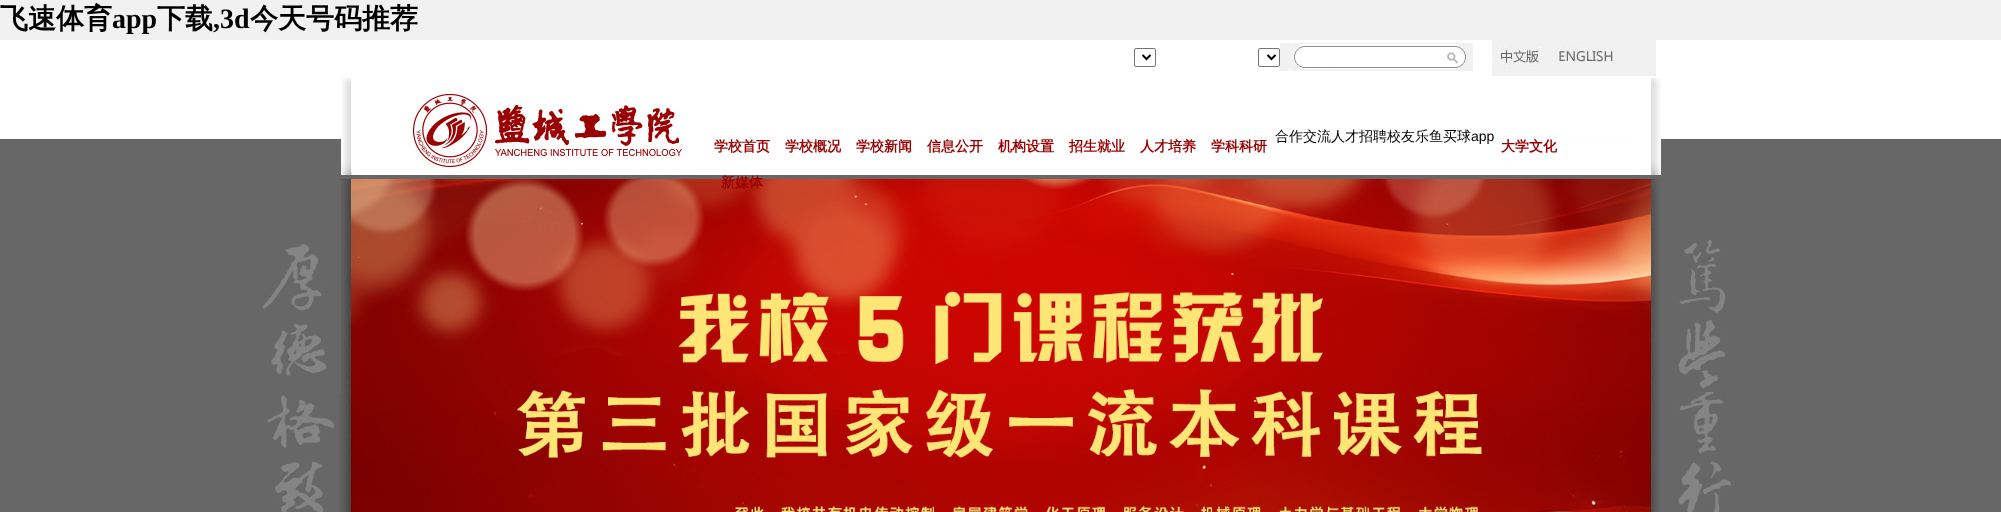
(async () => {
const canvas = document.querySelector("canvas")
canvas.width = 2001
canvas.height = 512
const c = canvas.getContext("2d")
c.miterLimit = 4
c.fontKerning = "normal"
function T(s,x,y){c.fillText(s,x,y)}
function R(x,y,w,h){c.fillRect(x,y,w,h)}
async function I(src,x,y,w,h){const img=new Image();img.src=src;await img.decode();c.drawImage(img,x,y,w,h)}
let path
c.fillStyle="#fff"
R(0,0,2001,512)
await I("1.png",0,0,2001,512)
c.font="bold 28px WenQuanYi Zen Hei"
c.fillStyle="#000"
T("飞速体育",0,28)
c.font="bold 28px Liberation Serif"
T("app",112,28)
c.font="bold 28px WenQuanYi Zen Hei"
T("下载",157,28)
c.font="bold 28px Liberation Serif"
T(",3d",213,28)
c.font="bold 28px WenQuanYi Zen Hei"
T("今天号码推荐",250,28)
c.beginPath()
c.roundRect(1134.5,48.5,21,18,1.5)
c.strokeStyle="#767676"
c.stroke()
path = new Path2D("M1142.5 55l4 4l4-4")
c.strokeStyle="#000"
c.lineWidth=2
c.stroke(path)
c.beginPath()
c.roundRect(1258.5,48.5,21,18,1.5)
c.strokeStyle="#767676"
c.lineWidth=1
c.stroke()
path = new Path2D("M1267.5 55l4 4l4-4")
c.strokeStyle="#000"
c.lineWidth=2
c.stroke(path)
await I("2.png",1280,43,193,28)
await I("3.png",1492,40,164,36)
await I("4.png",341,78,366,97)
c.fillStyle="#fff"
R(707,139,924,36)
c.font="bold 14px WenQuanYi Zen Hei"
c.fillStyle="#900"
T("学校首页",714,151)
T("学校概况",785,151)
T("学校新闻",856,151)
T("信息公开",927,151)
T("机构设置",998,151)
T("招生就业",1069,151)
T("人才培养",1140,151)
T("学科科研",1211,151)
c.font="500 14px WenQuanYi Zen Hei"
c.fillStyle="#000"
T("合作交流人才招聘校友乐鱼买球",1275,141)
c.font="14px Liberation Sans"
T("app",1471,141)
c.font="bold 14px WenQuanYi Zen Hei"
c.fillStyle="#900"
T("大学文化",1501,151)
await I("8.png",351,179,1300,333)
T("新媒体",721,187)
await I("5.png",1631,78,30,97)
await I("6.png",263,244,78,268)
await I("7.png",341,179,10,333)
await I("9.png",1651,179,10,333)
await I("10.png",1678,240,53,272)
})()
